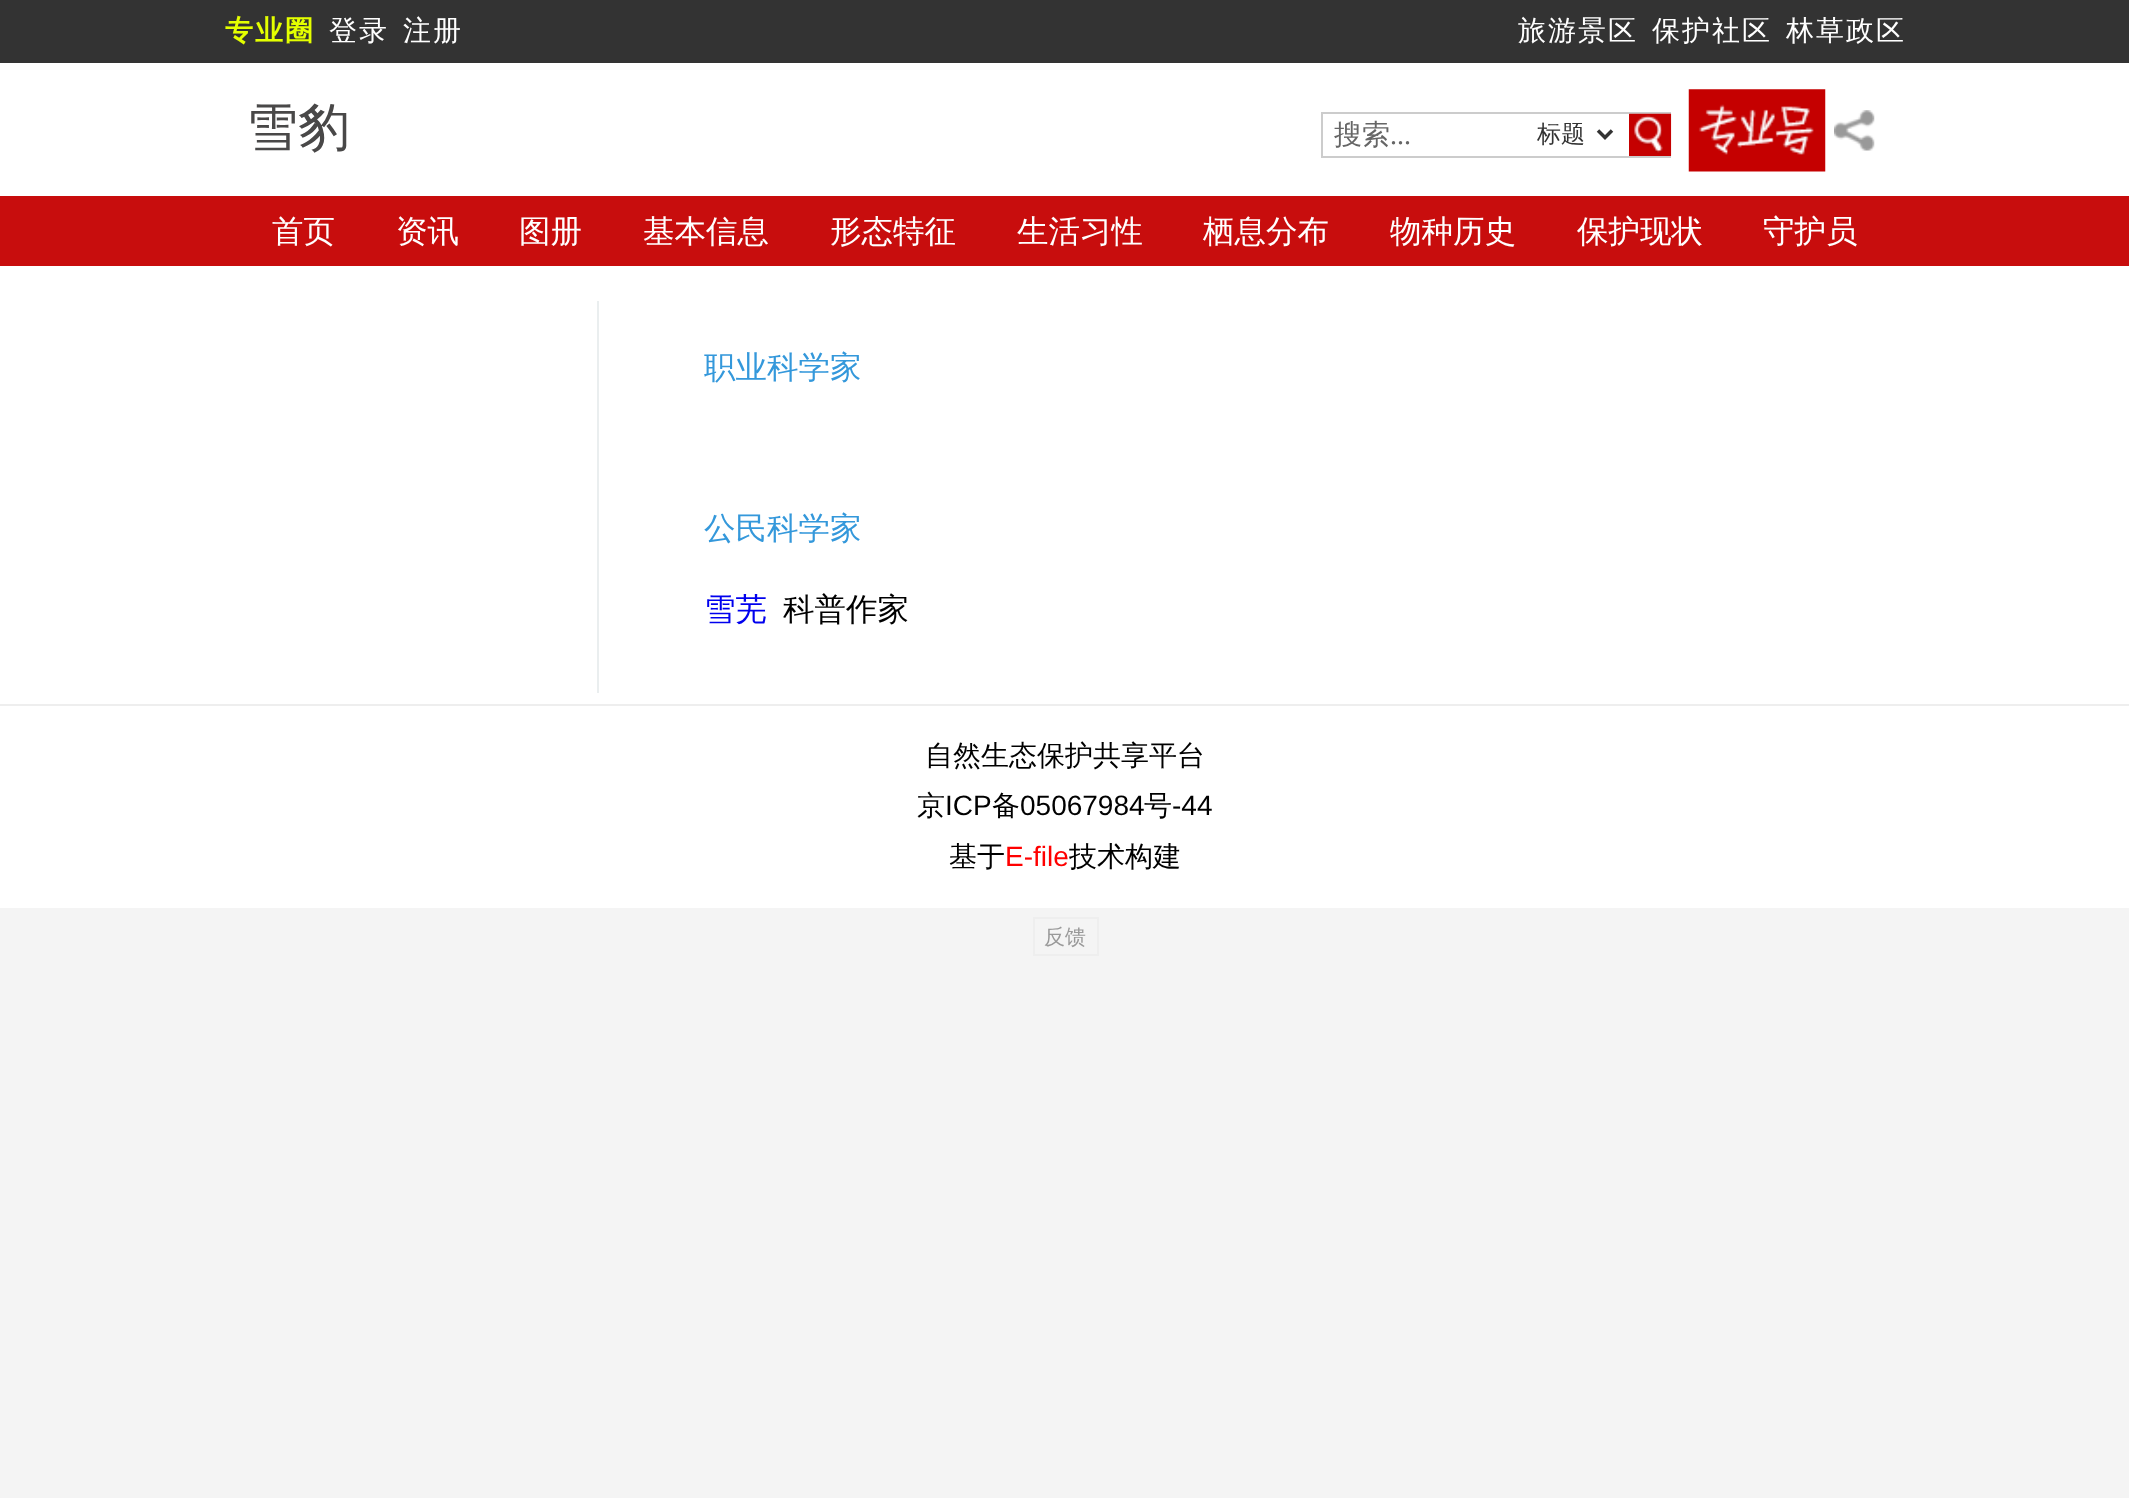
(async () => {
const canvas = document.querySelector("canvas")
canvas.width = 2129
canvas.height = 1498
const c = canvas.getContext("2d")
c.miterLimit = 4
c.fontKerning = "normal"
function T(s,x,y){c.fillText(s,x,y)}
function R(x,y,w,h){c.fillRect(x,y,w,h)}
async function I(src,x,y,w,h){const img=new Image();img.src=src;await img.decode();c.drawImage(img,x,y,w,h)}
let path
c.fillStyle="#f4f4f4"
R(0,0,2129,1498)
c.fillStyle="#fff"
R(0,63,2129,845)
c.fillStyle="#333"
R(0,0,2129,63)
c.letterSpacing="2px"
c.font="bold 28px WenQuanYi Zen Hei"
c.fillStyle="#e4ff00"
T("专业圈",225,40)
c.font="500 28px WenQuanYi Zen Hei"
c.fillStyle="#fff"
T("登录",329,40)
T("注册",403,40)
T("旅游景区",1518,40)
T("保护社区",1652,40)
T("林草政区",1786,40)
c.letterSpacing="0px"
c.font="500 52px WenQuanYi Zen Hei"
c.fillStyle="#494848"
T("雪豹",246,145)
c.strokeStyle="#ccc"
c.lineWidth=2
c.strokeRect(1322,113,348,44)
c.font="500 28px WenQuanYi Zen Hei"
c.fillStyle="#666"
T("搜索",1334,144)
c.font="28px Liberation Serif"
T("...",1390,144)
path = new Path2D("M1598 130.5l7 7l7-7")
c.strokeStyle="#333"
c.lineWidth=3.5
c.stroke(path)
c.font="500 24px WenQuanYi Zen Hei"
c.fillStyle="#333"
T("标题",1537,142)
c.fillStyle="#c50000"
R(1629,114,42,42)
await I("1.png",1629,113,43,43)
await I("2.png",1688,89,138,83)
await I("3.png",1834,110,41,41)
c.fillStyle="#c80d0d"
R(0,196,2129,70)
c.font="500 31.5px WenQuanYi Zen Hei"
c.fillStyle="#fff"
T("首页",272,242)
T("资讯",396,242)
T("图册",519,242)
T("基本信息",643,242)
T("形态特征",830,242)
T("生活习性",1017,242)
T("栖息分布",1203,242)
T("物种历史",1390,242)
T("保护现状",1577,242)
T("守护员",1763,242)
c.fillStyle="#eaeeef"
R(597,301,2,392)
c.fillStyle="#3498db"
T("职业科学家",704,378)
T("公民科学家",704,539)
c.fillStyle="#00e"
T("雪芜",704,620)
c.fillStyle="#000"
T("科普作家",783,620)
c.fillStyle="#eee"
R(0,704,2129,2)
c.font="500 28px WenQuanYi Zen Hei"
c.fillStyle="#000"
T("自然生态保护共享平台",925,765)
T("京",917,815)
c.font="28px Liberation Sans"
T("ICP",945,815)
c.font="500 28px WenQuanYi Zen Hei"
T("备",992,815)
c.font="28px Liberation Sans"
T("05067984",1020,815)
c.font="500 28px WenQuanYi Zen Hei"
T("号",1144,815)
c.font="28px Liberation Sans"
T("-44",1172,815)
c.font="500 28px WenQuanYi Zen Hei"
T("基于",949,866)
c.font="28px Liberation Sans"
c.fillStyle="#f00"
T("E-file",1005,866)
c.font="500 28px WenQuanYi Zen Hei"
c.fillStyle="#000"
T("技术构建",1069,866)
c.strokeStyle="#eee"
c.lineWidth=2
c.strokeRect(1034,918,64,37)
c.font="500 21px WenQuanYi Zen Hei"
c.fillStyle="#999"
T("反馈",1044,944)
})()
